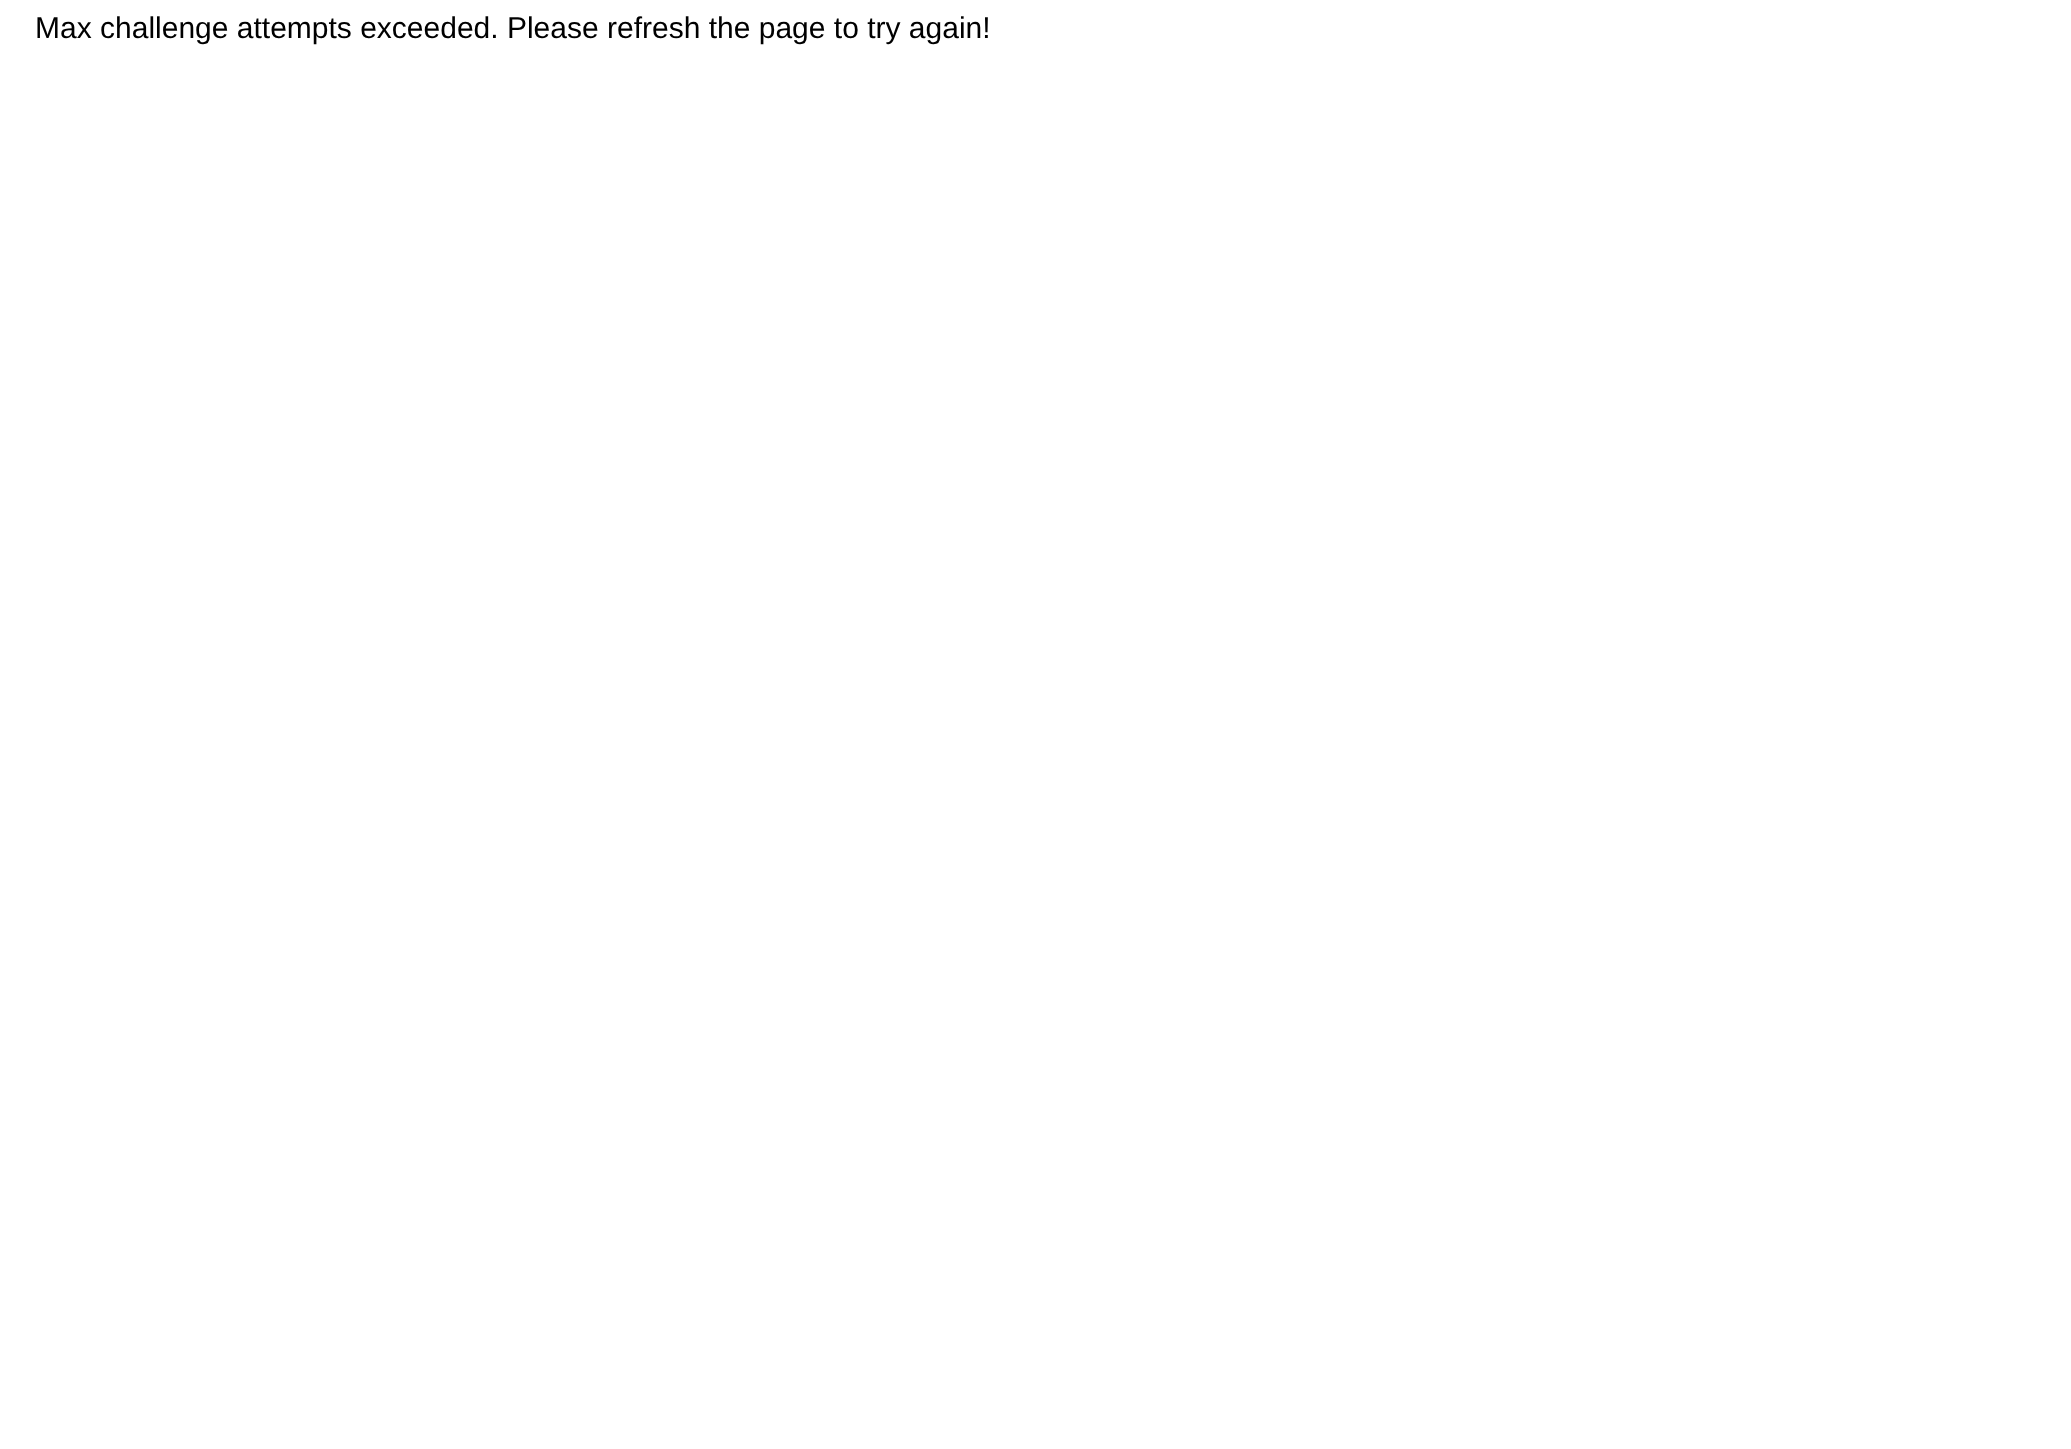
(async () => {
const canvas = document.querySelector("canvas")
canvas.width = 2071
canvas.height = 1449
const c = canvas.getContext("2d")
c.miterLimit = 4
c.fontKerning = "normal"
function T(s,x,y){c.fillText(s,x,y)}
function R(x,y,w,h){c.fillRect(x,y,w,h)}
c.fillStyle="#fff"
R(0,0,2071,1449)
c.font="30px Liberation Sans"
c.fillStyle="#000"
T("Max challenge attempts exceeded. Please refresh the page to try again!",35,38)
})()
